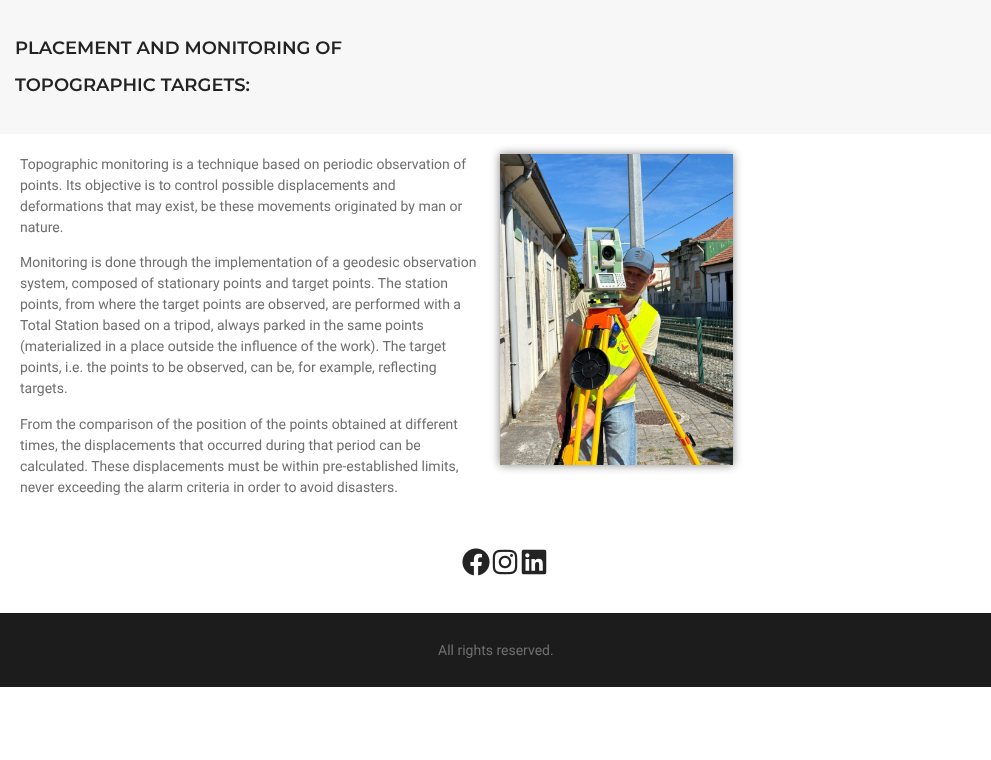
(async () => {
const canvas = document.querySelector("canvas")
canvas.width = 991
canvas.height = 760
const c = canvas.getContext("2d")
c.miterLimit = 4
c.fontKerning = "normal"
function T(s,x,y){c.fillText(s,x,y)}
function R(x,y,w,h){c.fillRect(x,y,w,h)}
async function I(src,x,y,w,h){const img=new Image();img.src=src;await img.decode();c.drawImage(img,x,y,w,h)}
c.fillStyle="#fff"
R(0,0,991,760)
c.fillStyle="#f7f7f7"
R(0,0,991,134)
c.font="600 18px Montserrat"
c.fillStyle="#232323"
T("PLACEMENT AND MONITORING OF",15,54)
T("TOPOGRAPHIC TARGETS:",15,91)
c.font="14px Roboto"
c.fillStyle="#6f6f6f"
T("Topographic monitoring is a technique based on periodic observation of",20,169)
T("points. Its objective is to control possible displacements and",20,190)
T("deformations that may exist, be these movements originated by man or",20,211)
T("nature.",20,232)
T("Monitoring is done through the implementation of a geodesic observation",20,267)
T("system, composed of stationary points and target points. The station",20,288)
T("points, from where the target points are observed, are performed with a",20,309)
T("Total Station based on a tripod, always parked in the same points",20,330)
T("(materialized in a place outside the influence of the work). The target",20,351)
T("points, i.e. the points to be observed, can be, for example, reflecting",20,372)
T("targets.",20,393)
T("From the comparison of the position of the points obtained at different",20,429)
T("times, the displacements that occurred during that period can be",20,450)
T("calculated. These displacements must be within pre-established limits,",20,471)
T("never exceeding the alarm criteria in order to avoid disasters.",20,492)
c.fillStyle="#00000080"
c.filter="blur(5px)"
c.beginPath()
c.rect(500,154,233,311)
c.fill()
c.filter="none"
await I("1.png",500,154,233,311)
await I("2.png",462,548,28,28)
await I("3.png",492,549,26,26)
await I("4.png",521,549,26,26)
c.fillStyle="#1c1c1c"
R(0,613,991,74)
c.fillStyle="#6f6f6f"
T("All rights reserved.",438,655)
})()
